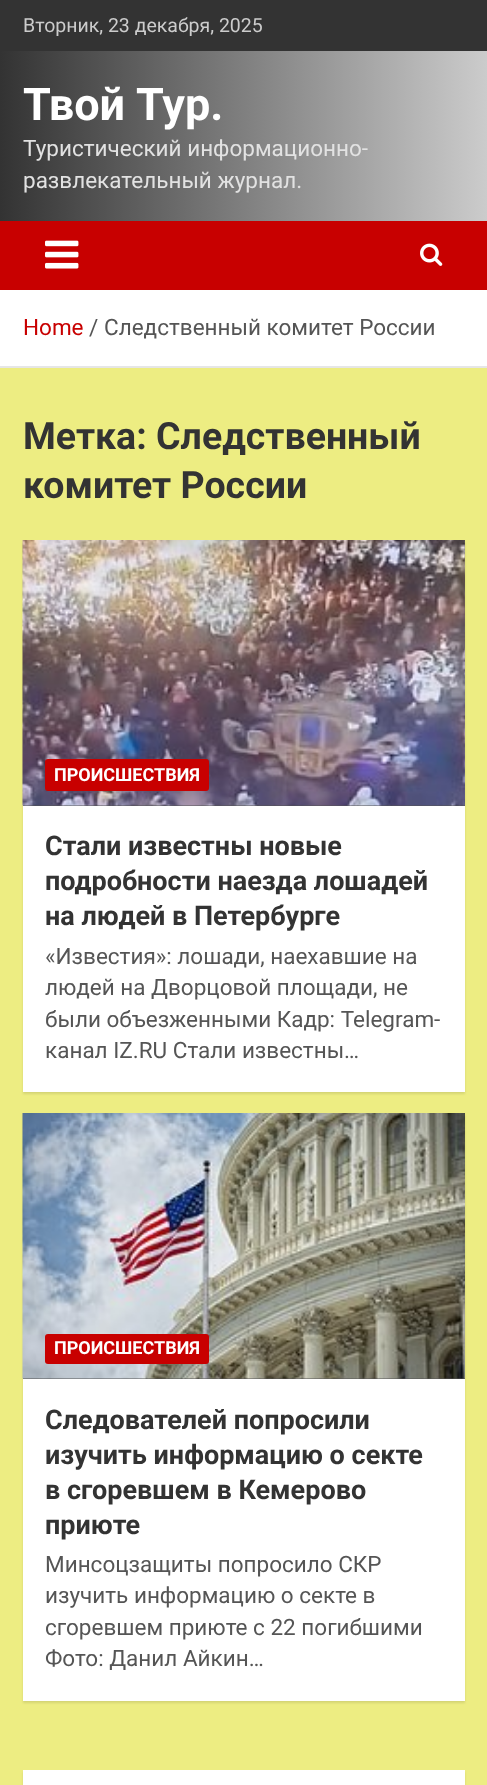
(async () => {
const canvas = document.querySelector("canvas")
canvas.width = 487
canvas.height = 1785
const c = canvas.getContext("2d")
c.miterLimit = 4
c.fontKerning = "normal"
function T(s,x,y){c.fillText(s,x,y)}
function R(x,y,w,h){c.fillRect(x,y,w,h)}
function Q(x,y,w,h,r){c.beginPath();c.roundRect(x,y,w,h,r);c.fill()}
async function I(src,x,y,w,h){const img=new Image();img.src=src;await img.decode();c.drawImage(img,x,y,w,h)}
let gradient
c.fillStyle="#eded82"
R(0,0,487,1785)
c.fillStyle="#333"
R(0,0,487,51)
c.font="19.5px Roboto"
c.fillStyle="#ccc"
T("Вторник, 23 декабря, 2025",23,32)
gradient = c.createLinearGradient(0,136,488,136)
gradient.addColorStop(0,"#333")
gradient.addColorStop(1,"#ccc")
c.fillStyle = gradient
R(0,51,487,170)
c.wordSpacing="1px"
c.font="bold 45px Roboto"
c.fillStyle="#fff"
T("Твой Тур.",23,120)
c.wordSpacing="0px"
c.font="22.5px Roboto"
c.fillStyle="#e2e2e2"
T("Туристический информационно-",23,156)
T("развлекательный журнал.",23,188)
c.fillStyle="#c80000"
R(0,221,487,69)
await I("1.png",45,240,34,29)
await I("2.png",420,243,23,23)
c.fillStyle="#fff"
R(0,290,487,76)
c.fillStyle="#e6e6e6"
R(0,366,487,2)
c.fillStyle="#c80000"
T("Home",23,335)
c.fillStyle="#555"
T("/",89,335)
T("Следственный комитет России",104,335)
c.font="bold 37.5px Roboto"
c.fillStyle="#333"
T("Метка: Следственный",23,449)
T("комитет России",23,498)
c.fillStyle="#0000001a"
c.filter="blur(1px)"
c.beginPath()
c.rect(23,542,442,552)
c.fill()
c.filter="none"
c.fillStyle="#fff"
R(23,806,442,286)
c.fillStyle="#555"
R(23,805,442,1)
await I("3.png",22,540,443,266)
c.fillStyle="#c80000"
Q(45,759,164,32,3)
c.font="bold 18px Roboto"
c.fillStyle="#fff"
T("ПРОИСШЕСТВИЯ",54,781)
c.font="bold 27px Roboto"
c.fillStyle="#333"
T("Стали известны новые",45,855)
T("подробности наезда лошадей",45,890)
T("на людей в Петербурге",45,925)
c.font="22.5px Roboto"
c.fillStyle="#555"
T("«Известия»: лошади, наехавшие на",45,964)
T("людей на Дворцовой площади, не",45,995)
T("были объезженными Кадр: Telegram-",45,1027)
T("канал IZ.RU Стали известны…",45,1058)
c.fillStyle="#0000001a"
c.filter="blur(1px)"
c.beginPath()
c.rect(23,1115,442,588)
c.fill()
c.filter="none"
c.fillStyle="#fff"
R(23,1379,442,322)
c.fillStyle="#555"
R(23,1378,442,1)
await I("4.png",22,1113,443,266)
c.fillStyle="#c80000"
Q(45,1334,164,30,3)
c.font="bold 18px Roboto"
c.fillStyle="#fff"
T("ПРОИСШЕСТВИЯ",54,1354)
c.font="bold 27px Roboto"
c.fillStyle="#333"
T("Следователей попросили",45,1429)
T("изучить информацию о секте",45,1464)
T("в сгоревшем в Кемерово",45,1499)
T("приюте",45,1534)
c.font="22.5px Roboto"
c.fillStyle="#555"
T("Минсоцзащиты попросило СКР",45,1572)
T("изучить информацию о секте в",45,1603)
T("сгоревшем приюте с 22 погибшими",45,1635)
T("Фото: Данил Айкин…",45,1666)
c.fillStyle="#0000001a"
c.filter="blur(1px)"
c.beginPath()
c.rect(23,1772,442,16)
c.fill()
c.filter="none"
c.fillStyle="#fff"
R(23,1770,442,15)
})()
